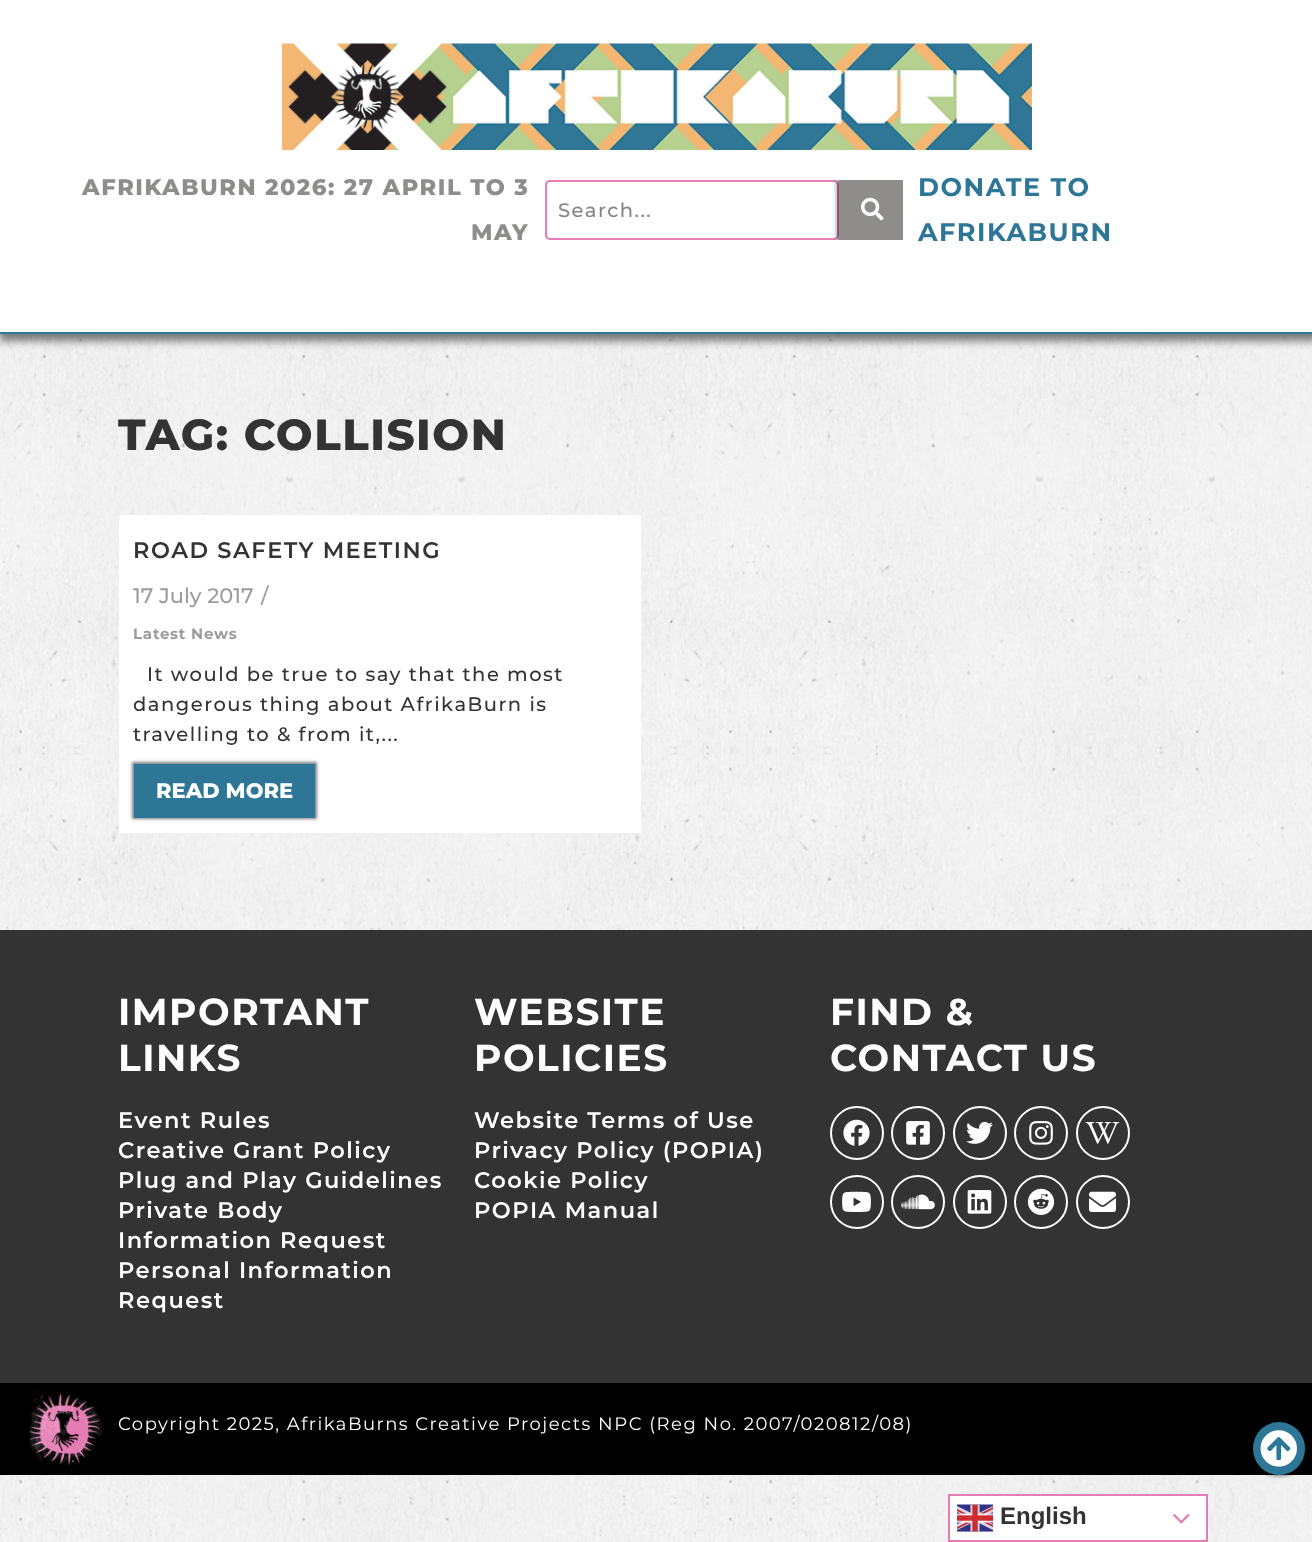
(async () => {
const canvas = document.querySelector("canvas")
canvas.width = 1312
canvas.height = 1542
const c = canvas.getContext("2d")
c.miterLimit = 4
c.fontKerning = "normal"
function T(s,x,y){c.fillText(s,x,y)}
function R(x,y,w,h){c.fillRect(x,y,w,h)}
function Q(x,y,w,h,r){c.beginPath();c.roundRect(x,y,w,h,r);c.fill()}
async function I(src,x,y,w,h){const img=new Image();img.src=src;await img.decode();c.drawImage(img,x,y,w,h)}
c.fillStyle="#fff"
R(0,0,1312,1542)
await I("1.png",0,334,1312,1208)
c.fillStyle="#00000080"
c.filter="blur(4px)"
c.beginPath()
c.rect(-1,-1,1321,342)
c.fill()
c.filter="none"
c.fillStyle="#fff"
R(0,0,1312,332)
c.fillStyle="#2d7696"
R(0,332,1312,2)
await I("2.png",282,43,750,107)
c.letterSpacing="1.5px"
c.font="800 22.5px Montserrat"
c.fillStyle="#8e8d8c"
T("AFRIKABURN 2026: 27 APRIL TO 3",82,195)
T("MAY",471,240)
c.fillStyle="#f1f2f3"
R(545,180,294,60)
c.fillStyle="#fff"
c.beginPath()
c.roundRect(546,181,292,58,4)
c.fill()
c.strokeStyle="#e67eb3"
c.lineWidth=2
c.stroke()
c.font="500 19.5px Montserrat"
c.fillStyle="#858585"
T("Search...",558,217)
c.save()
c.beginPath()
c.rect(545,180,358,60)
c.clip()
c.fillStyle="#00000080"
c.filter="blur(2px)"
c.beginPath()
c.rect(837,179,68,63)
c.fill()
c.filter="none"
c.restore()
c.fillStyle="#8e8d8c"
R(839,180,64,60)
await I("3.png",861,197,23,24)
c.font="bold 25.5px Montserrat"
c.fillStyle="#2d7696"
T("DONATE TO",918,196)
T("AFRIKABURN",918,241)
c.font="800 43.5px Montserrat"
c.fillStyle="#333"
T("TAG: COLLISION",118,450)
c.fillStyle="#fff"
R(119,515,522,318)
c.font="600 22.5px Montserrat"
c.fillStyle="#333"
T("ROAD SAFETY MEETING",133,558)
c.letterSpacing="0px"
c.font="500 21px Montserrat"
c.fillStyle="#9c9c9c"
T("17 July 2017",133,603)
T("/",261,603)
c.letterSpacing="0.75px"
c.font="bold 15px Montserrat"
T("Latest News",133,639)
c.letterSpacing="1.5px"
c.font="500 19.5px Montserrat"
c.fillStyle="#333"
T("It would be true to say that the most",147,681)
T("dangerous thing about AfrikaBurn is",133,711)
T("travelling to & from it,...",133,741)
c.fillStyle="#00000080"
c.filter="blur(1.5px)"
c.beginPath()
c.rect(132,762,185,57)
c.fill()
c.filter="none"
c.fillStyle="#2d7696"
R(134,764,181,54)
c.letterSpacing="0px"
c.font="800 21px Montserrat"
c.fillStyle="#fff"
T("READ MORE",156,798)
c.fillStyle="#333"
R(0,930,1312,453)
c.fillStyle="#000"
R(0,1383,1312,92)
c.fillStyle="#00000080"
c.filter="blur(2px)"
c.beginPath()
c.roundRect(1251,1421,56,55,27.5)
c.fill()
c.filter="none"
c.fillStyle="#2d7696"
Q(1253,1422,52,53,26)
await I("4.png",1260,1430,37,37)
c.letterSpacing="1.5px"
c.font="bold 37.5px Montserrat"
c.fillStyle="#fff"
T("IMPORTANT",118,1025)
T("LINKS",118,1071)
c.font="600 22.5px Montserrat"
T("Event Rules",118,1128)
T("Creative Grant Policy",118,1158)
T("Plug and Play Guidelines",118,1188)
T("Private Body",118,1218)
T("Information Request",118,1248)
T("Personal Information",118,1278)
T("Request",118,1308)
c.font="bold 37.5px Montserrat"
T("WEBSITE",474,1025)
T("POLICIES",474,1071)
c.font="600 22.5px Montserrat"
T("Website Terms of Use",474,1128)
T("Privacy Policy (POPIA)",474,1158)
T("Cookie Policy",474,1188)
T("POPIA Manual",474,1218)
c.font="bold 37.5px Montserrat"
T("FIND &",830,1025)
T("CONTACT US",830,1071)
c.beginPath()
c.arc(857,1133,26,0,7)
c.strokeStyle="#fff"
c.stroke()
await I("5.png",843,1119,27,27)
c.beginPath()
c.arc(918,1133,26,0,7)
c.stroke()
await I("6.png",906,1121,24,24)
c.beginPath()
c.arc(980,1133,26,0,7)
c.stroke()
await I("7.png",966,1121,27,23)
c.beginPath()
c.arc(1041,1133,26,0,7)
c.stroke()
await I("8.png",1029,1121,24,24)
c.beginPath()
c.arc(1103,1133,26,0,7)
c.stroke()
await I("9.png",1085,1122,35,22)
c.beginPath()
c.arc(857,1202,26,0,7)
c.stroke()
await I("10.png",842,1191,29,21)
c.beginPath()
c.arc(918,1202,26,0,7)
c.stroke()
await I("11.png",901,1194,34,16)
c.beginPath()
c.arc(980,1202,26,0,7)
c.stroke()
await I("12.png",967,1190,25,24)
c.beginPath()
c.arc(1041,1202,26,0,7)
c.stroke()
await I("13.png",1027,1188,28,27)
c.beginPath()
c.arc(1103,1202,26,0,7)
c.stroke()
await I("14.png",1089,1191,27,21)
await I("15.png",29,1390,74,76)
c.font="18px Montserrat"
T("Copyright 2025, AfrikaBurns Creative Projects NPC (Reg No. 2007/020812/08)",118,1430)
c.beginPath()
c.rect(949,1495,258,46)
c.fill()
c.strokeStyle="#e67db2"
c.stroke()
await I("16.png",957,1504,36,28)
c.letterSpacing="0px"
c.font="bold 24px Liberation Sans"
c.fillStyle="#333"
T("English",1000,1524)
await I("17.png",1173,1514,17,10)
})()
